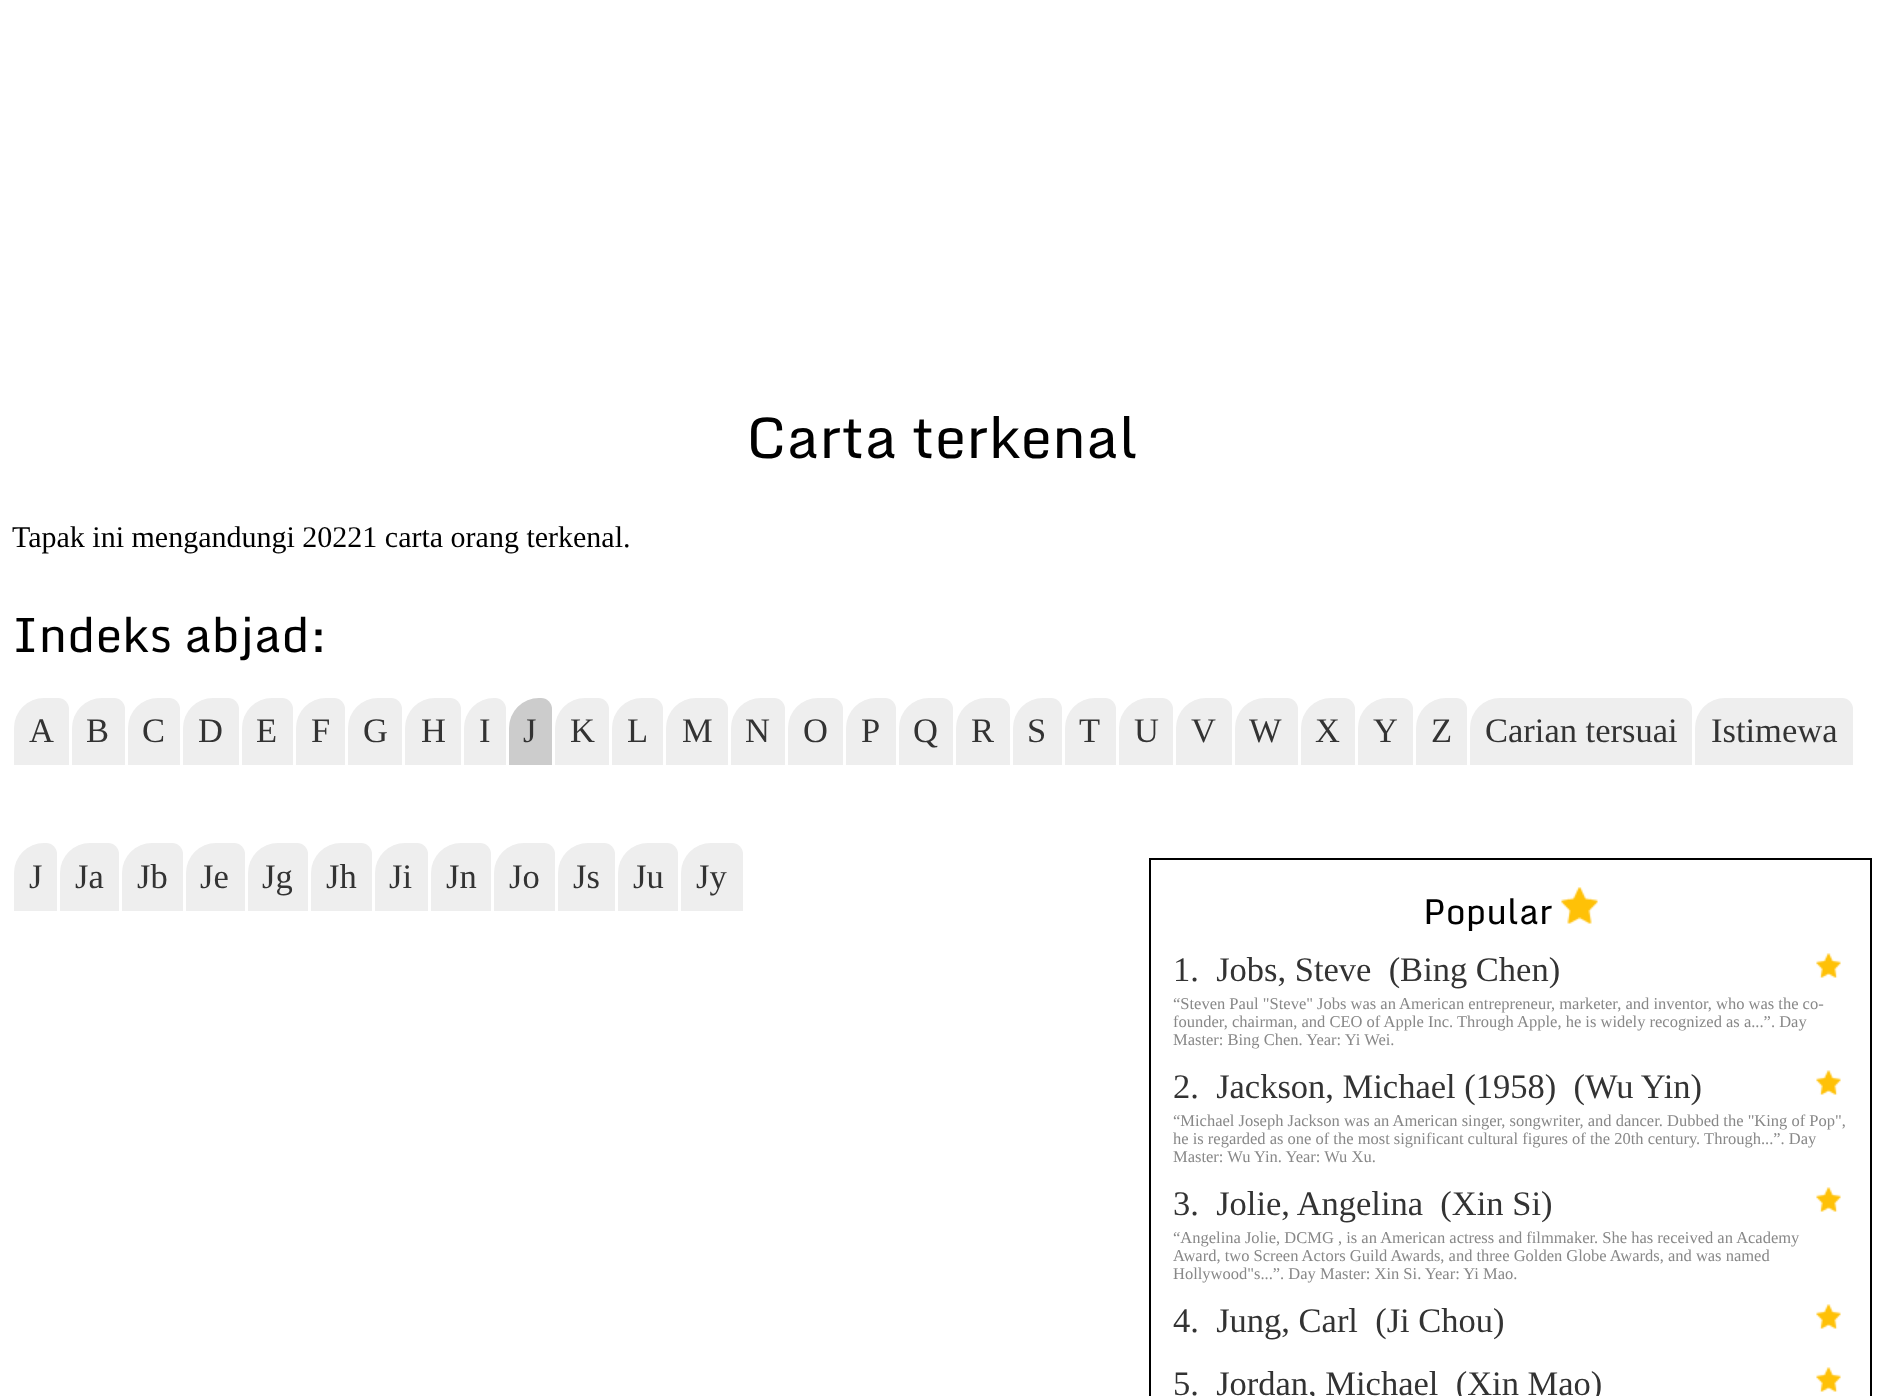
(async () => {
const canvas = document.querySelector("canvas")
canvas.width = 1884
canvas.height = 1396
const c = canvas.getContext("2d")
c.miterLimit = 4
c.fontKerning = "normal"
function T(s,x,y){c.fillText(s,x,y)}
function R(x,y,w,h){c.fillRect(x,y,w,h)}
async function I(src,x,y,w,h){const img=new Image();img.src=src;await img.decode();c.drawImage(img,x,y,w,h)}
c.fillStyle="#fff"
R(0,0,1884,1396)
c.font="57px Monda"
c.fillStyle="#000"
T("Carta terkenal",746,458)
c.font="30px Liberation Serif"
T("Tapak ini mengandungi 20221 carta orang terkenal.",12,547)
c.font="48px Monda"
T("Indeks abjad:",12,652)
c.fillStyle="#eee"
c.beginPath()
c.roundRect(14,698,55,67,[30,11,0,0])
c.fill()
c.font="34.5px Liberation Serif"
c.fillStyle="#333"
T("A",29,742)
c.fillStyle="#eee"
c.beginPath()
c.roundRect(72,698,53,67,[30,11,0,0])
c.fill()
c.fillStyle="#333"
T("B",86,742)
c.fillStyle="#eee"
c.beginPath()
c.roundRect(128,698,52,67,[30,11,0,0])
c.fill()
c.fillStyle="#333"
T("C",142,742)
c.fillStyle="#eee"
c.beginPath()
c.roundRect(183,698,56,67,[30,11,0,0])
c.fill()
c.fillStyle="#333"
T("D",198,742)
c.fillStyle="#eee"
c.beginPath()
c.roundRect(242,698,51,67,[30,11,0,0])
c.fill()
c.fillStyle="#333"
T("E",256,742)
c.fillStyle="#eee"
c.beginPath()
c.roundRect(296,698,49,67,[30,11,0,0])
c.fill()
c.fillStyle="#333"
T("F",311,742)
c.fillStyle="#eee"
c.beginPath()
c.roundRect(348,698,54,67,[30,11,0,0])
c.fill()
c.fillStyle="#333"
T("G",363,742)
c.fillStyle="#eee"
c.beginPath()
c.roundRect(405,698,56,67,[30,11,0,0])
c.fill()
c.fillStyle="#333"
T("H",421,742)
c.fillStyle="#eee"
c.beginPath()
c.roundRect(464,698,42,67,[30,11,0,0])
c.fill()
c.fillStyle="#333"
T("I",479,742)
c.fillStyle="#ccc"
c.beginPath()
c.roundRect(509,698,43,67,[30,11,0,0])
c.fill()
c.fillStyle="#333"
T("J",523,742)
c.fillStyle="#eee"
c.beginPath()
c.roundRect(555,698,54,67,[30,11,0,0])
c.fill()
c.fillStyle="#333"
T("K",570,742)
c.fillStyle="#eee"
c.beginPath()
c.roundRect(612,698,51,67,[30,11,0,0])
c.fill()
c.fillStyle="#333"
T("L",627,742)
c.fillStyle="#eee"
c.beginPath()
c.roundRect(666,698,62,67,[30,11,0,0])
c.fill()
c.fillStyle="#333"
T("M",682,742)
c.fillStyle="#eee"
c.beginPath()
c.roundRect(731,698,54,67,[30,11,0,0])
c.fill()
c.fillStyle="#333"
T("N",745,742)
c.fillStyle="#eee"
c.beginPath()
c.roundRect(788,698,55,67,[30,11,0,0])
c.fill()
c.fillStyle="#333"
T("O",803,742)
c.fillStyle="#eee"
c.beginPath()
c.roundRect(846,698,50,67,[30,11,0,0])
c.fill()
c.fillStyle="#333"
T("P",861,742)
c.fillStyle="#eee"
c.beginPath()
c.roundRect(899,698,54,67,[30,11,0,0])
c.fill()
c.fillStyle="#333"
T("Q",913,742)
c.fillStyle="#eee"
c.beginPath()
c.roundRect(956,698,54,67,[30,11,0,0])
c.fill()
c.fillStyle="#333"
T("R",971,742)
c.fillStyle="#eee"
c.beginPath()
c.roundRect(1013,698,49,67,[30,11,0,0])
c.fill()
c.fillStyle="#333"
T("S",1027,742)
c.fillStyle="#eee"
c.beginPath()
c.roundRect(1065,698,51,67,[30,11,0,0])
c.fill()
c.fillStyle="#333"
T("T",1079,742)
c.fillStyle="#eee"
c.beginPath()
c.roundRect(1119,698,54,67,[30,11,0,0])
c.fill()
c.fillStyle="#333"
T("U",1134,742)
c.fillStyle="#eee"
c.beginPath()
c.roundRect(1176,698,56,67,[30,11,0,0])
c.fill()
c.fillStyle="#333"
T("V",1191,742)
c.fillStyle="#eee"
c.beginPath()
c.roundRect(1235,698,63,67,[30,11,0,0])
c.fill()
c.fillStyle="#333"
T("W",1249,742)
c.fillStyle="#eee"
c.beginPath()
c.roundRect(1301,698,54,67,[30,11,0,0])
c.fill()
c.fillStyle="#333"
T("X",1315,742)
c.fillStyle="#eee"
c.beginPath()
c.roundRect(1358,698,55,67,[30,11,0,0])
c.fill()
c.fillStyle="#333"
T("Y",1373,742)
c.fillStyle="#eee"
c.beginPath()
c.roundRect(1416,698,51,67,[30,11,0,0])
c.fill()
c.fillStyle="#333"
T("Z",1431,742)
c.fillStyle="#eee"
c.beginPath()
c.roundRect(1470,698,222,67,[30,11,0,0])
c.fill()
c.fillStyle="#333"
T("Carian tersuai",1485,742)
c.fillStyle="#eee"
c.beginPath()
c.roundRect(1695,698,158,67,[30,11,0,0])
c.fill()
c.fillStyle="#333"
T("Istimewa",1711,742)
c.fillStyle="#eee"
c.beginPath()
c.roundRect(14,843,43,68,[30,11,0,0])
c.fill()
c.fillStyle="#333"
T("J",29,888)
c.fillStyle="#eee"
c.beginPath()
c.roundRect(60,843,59,68,[30,11,0,0])
c.fill()
c.fillStyle="#333"
T("Ja",75,888)
c.fillStyle="#eee"
c.beginPath()
c.roundRect(122,843,61,68,[30,11,0,0])
c.fill()
c.fillStyle="#333"
T("Jb",137,888)
c.fillStyle="#eee"
c.beginPath()
c.roundRect(186,843,59,68,[30,11,0,0])
c.fill()
c.fillStyle="#333"
T("Je",200,888)
c.fillStyle="#eee"
c.beginPath()
c.roundRect(248,843,60,68,[30,11,0,0])
c.fill()
c.fillStyle="#333"
T("Jg",262,888)
c.fillStyle="#eee"
c.beginPath()
c.roundRect(311,843,61,68,[30,11,0,0])
c.fill()
c.fillStyle="#333"
T("Jh",326,888)
c.fillStyle="#eee"
c.beginPath()
c.roundRect(375,843,53,68,[30,11,0,0])
c.fill()
c.fillStyle="#333"
T("Ji",389,888)
c.fillStyle="#eee"
c.beginPath()
c.roundRect(431,843,60,68,[30,11,0,0])
c.fill()
c.fillStyle="#333"
T("Jn",446,888)
c.fillStyle="#eee"
c.beginPath()
c.roundRect(494,843,61,68,[30,11,0,0])
c.fill()
c.fillStyle="#333"
T("Jo",509,888)
c.fillStyle="#eee"
c.beginPath()
c.roundRect(558,843,57,68,[30,11,0,0])
c.fill()
c.fillStyle="#333"
T("Js",573,888)
c.fillStyle="#eee"
c.beginPath()
c.roundRect(618,843,60,68,[30,11,0,0])
c.fill()
c.fillStyle="#333"
T("Ju",633,888)
c.fillStyle="#eee"
c.beginPath()
c.roundRect(681,843,62,68,[30,11,0,0])
c.fill()
c.fillStyle="#333"
T("Jy",696,888)
c.strokeStyle="#000"
c.lineWidth=2
c.strokeRect(1150,859,721,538)
c.font="35px Monda"
c.fillStyle="#000"
T("Popular",1423,924)
await I("1.png",1561,887,37,37)
c.font="34.5px Liberation Serif"
c.fillStyle="#333"
T("1.  Jobs, Steve  (Bing Chen)",1173,981)
await I("2.png",1816,953,25,25)
c.font="16.5px Liberation Serif"
c.fillStyle="#888"
T("“Steven Paul \"Steve\" Jobs was an American entrepreneur, marketer, and inventor, who was the co-",1173,1009)
T("founder, chairman, and CEO of Apple Inc. Through Apple, he is widely recognized as a...”. Day",1173,1027)
T("Master: Bing Chen. Year: Yi Wei.",1173,1045)
c.font="34.5px Liberation Serif"
c.fillStyle="#333"
T("2.  Jackson, Michael (1958)  (Wu Yin)",1173,1098)
await I("2.png",1816,1070,25,25)
c.font="16.5px Liberation Serif"
c.fillStyle="#888"
T("“Michael Joseph Jackson was an American singer, songwriter, and dancer. Dubbed the \"King of Pop\",",1173,1126)
T("he is regarded as one of the most significant cultural figures of the 20th century. Through...”. Day",1173,1144)
T("Master: Wu Yin. Year: Wu Xu.",1173,1162)
c.font="34.5px Liberation Serif"
c.fillStyle="#333"
T("3.  Jolie, Angelina  (Xin Si)",1173,1215)
await I("2.png",1816,1187,25,25)
c.font="16.5px Liberation Serif"
c.fillStyle="#888"
T("“Angelina Jolie, DCMG , is an American actress and filmmaker. She has received an Academy",1173,1243)
T("Award, two Screen Actors Guild Awards, and three Golden Globe Awards, and was named",1173,1261)
T("Hollywood\"s...”. Day Master: Xin Si. Year: Yi Mao.",1173,1279)
c.font="34.5px Liberation Serif"
c.fillStyle="#333"
T("4.  Jung, Carl  (Ji Chou)",1173,1332)
await I("2.png",1816,1304,25,25)
T("5.  Jordan, Michael  (Xin Mao)",1173,1395)
await I("2.png",1816,1367,25,25)
})()
